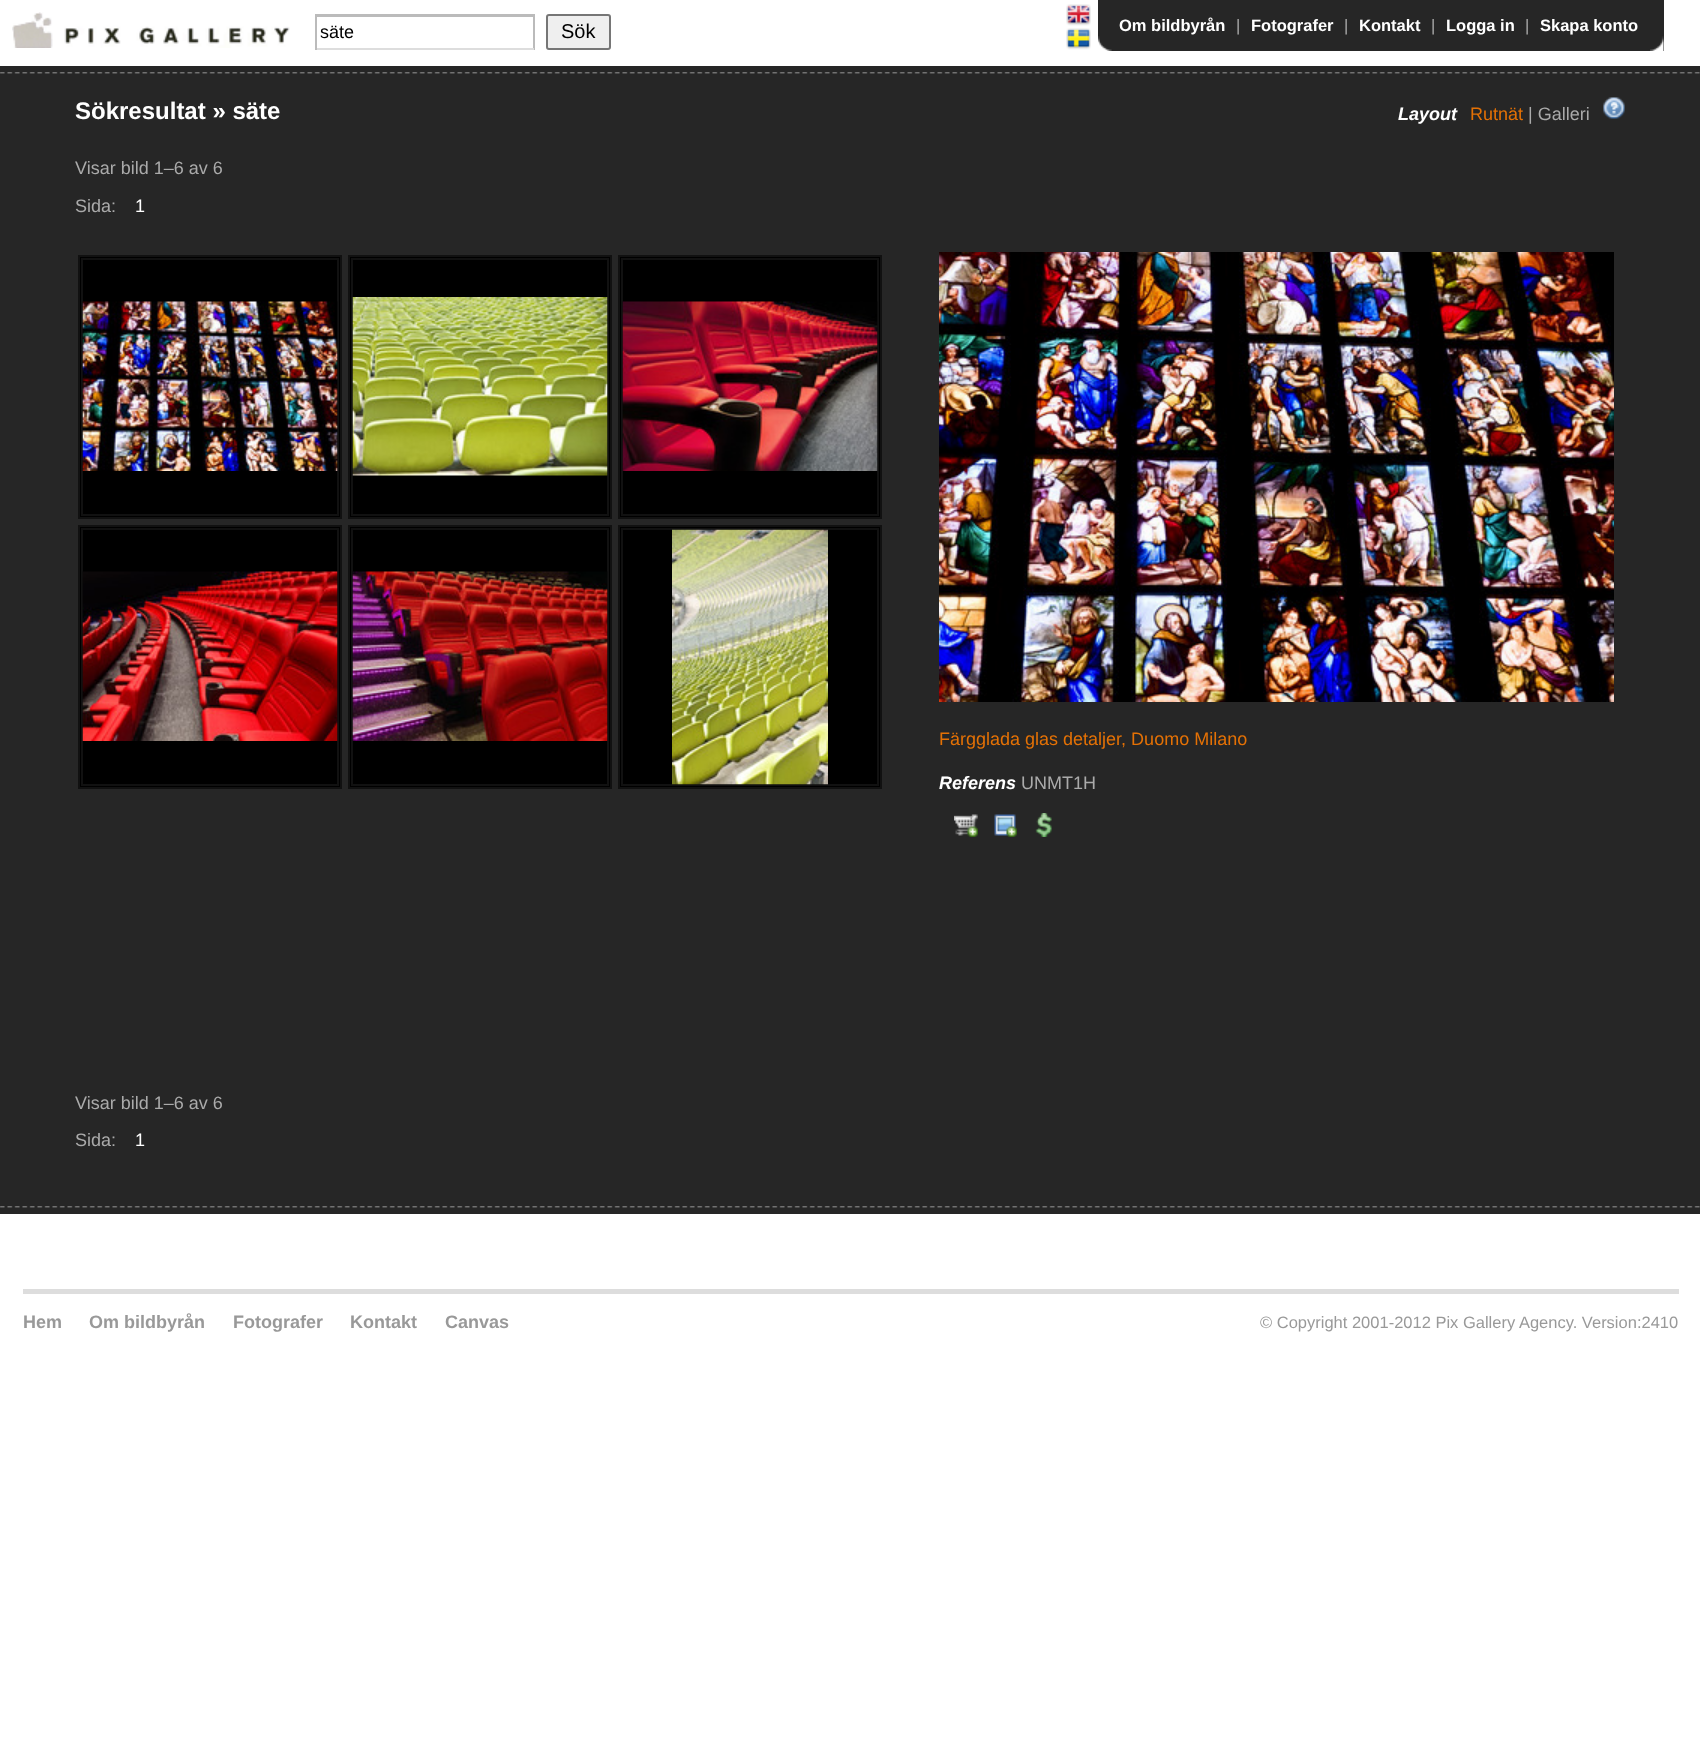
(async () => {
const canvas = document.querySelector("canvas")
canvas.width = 1700
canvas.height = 1741
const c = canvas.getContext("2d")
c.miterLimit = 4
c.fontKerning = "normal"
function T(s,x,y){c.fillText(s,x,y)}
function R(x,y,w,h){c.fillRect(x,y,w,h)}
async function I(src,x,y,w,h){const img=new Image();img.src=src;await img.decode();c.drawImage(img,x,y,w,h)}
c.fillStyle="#fff"
R(0,0,1700,1741)
await I("1.png",12,12,278,36)
c.fillStyle="#bbb"
R(315,14,219,3)
R(533,14,2,36)
c.fillStyle="#ddd"
R(315,48,219,2)
c.fillStyle="#bbb"
R(315,14,2,36)
c.font="18px Liberation Sans"
c.fillStyle="#000"
T("säte",320,38)
c.fillStyle="#efefef"
c.beginPath()
c.roundRect(547,15,63,34,2)
c.fill()
c.strokeStyle="#767676"
c.lineWidth=2
c.stroke()
c.font="20px Liberation Sans"
c.fillStyle="#000"
T("Sök",561,38)
await I("2.png",1066,4,25,22)
await I("3.png",1066,28,25,22)
c.fillStyle="#262626"
R(1098,0,566,51)
await I("4.png",1098,36,14,15)
await I("5.png",1650,36,14,15)
c.font="bold 16.5px Liberation Sans"
c.fillStyle="#fff"
T("Om bildbyrån",1119,31)
c.font="16.5px Liberation Sans"
c.fillStyle="#aaa"
T("|",1236,31)
c.font="bold 16.5px Liberation Sans"
c.fillStyle="#fff"
T("Fotografer",1251,31)
c.font="16.5px Liberation Sans"
c.fillStyle="#aaa"
T("|",1344,31)
c.font="bold 16.5px Liberation Sans"
c.fillStyle="#fff"
T("Kontakt",1359,31)
c.font="16.5px Liberation Sans"
c.fillStyle="#aaa"
T("|",1431,31)
c.font="bold 16.5px Liberation Sans"
c.fillStyle="#fff"
T("Logga in",1446,31)
c.font="16.5px Liberation Sans"
c.fillStyle="#aaa"
T("|",1525,31)
c.font="bold 16.5px Liberation Sans"
c.fillStyle="#fff"
T("Skapa konto",1540,31)
c.fillStyle="#262626"
R(0,66,1700,1148)
await I("6.png",0,72,1700,2)
await I("6.png",0,1206,1700,2)
c.font="bold 24px Liberation Sans"
c.fillStyle="#fff"
T("Sökresultat » säte",75,119)
c.font="italic bold 18px Liberation Sans"
T("Layout",1398,120)
c.font="18px Liberation Sans"
c.fillStyle="#e47105"
T("Rutnät",1470,120)
c.fillStyle="#aaa"
T("| Galleri",1528,120)
await I("7.png",1603,97,22,22)
T("Visar bild 1–6 av 6",75,174)
T("Sida:",75,212)
c.fillStyle="#fff"
T("1",135,212)
c.fillStyle="#000"
c.beginPath()
c.rect(79,256,262,262)
c.fill()
c.strokeStyle="#111"
c.stroke()
c.strokeRect(82,259,256,256)
await I("8.png",82,301,256,170)
c.beginPath()
c.rect(349,256,262,262)
c.fill()
c.stroke()
c.strokeRect(352,259,256,256)
await I("9.png",352,297,256,179)
c.beginPath()
c.rect(619,256,262,262)
c.fill()
c.stroke()
c.strokeRect(622,259,256,256)
await I("10.png",622,301,256,170)
c.beginPath()
c.rect(79,526,262,262)
c.fill()
c.stroke()
c.strokeRect(82,529,256,256)
await I("11.png",82,571,256,170)
c.beginPath()
c.rect(349,526,262,262)
c.fill()
c.stroke()
c.strokeRect(352,529,256,256)
await I("12.png",352,571,256,170)
c.beginPath()
c.rect(619,526,262,262)
c.fill()
c.stroke()
c.strokeRect(622,529,256,256)
await I("13.png",672,529,156,256)
await I("14.png",939,252,675,450)
c.fillStyle="#e47105"
T("Färgglada glas detaljer, Duomo Milano",939,745)
c.font="italic bold 18px Liberation Sans"
c.fillStyle="#fff"
T("Referens",939,789)
c.font="18px Liberation Sans"
c.fillStyle="#aaa"
T("UNMT1H",1021,789)
await I("15.png",954,814,24,23)
await I("16.png",994,814,23,23)
await I("17.png",1035,813,17,24)
T("Visar bild 1–6 av 6",75,1109)
T("Sida:",75,1146)
c.fillStyle="#fff"
T("1",135,1146)
c.fillStyle="#ddd"
R(23,1289,1656,5)
c.font="bold 18px Liberation Sans"
c.fillStyle="#999"
T("Hem",23,1328)
T("Om bildbyrån",89,1328)
T("Fotografer",233,1328)
T("Kontakt",350,1328)
T("Canvas",445,1328)
c.font="16.5px Liberation Sans"
T("© Copyright 2001-2012 Pix Gallery Agency. Version:2410",1260,1328)
})()
